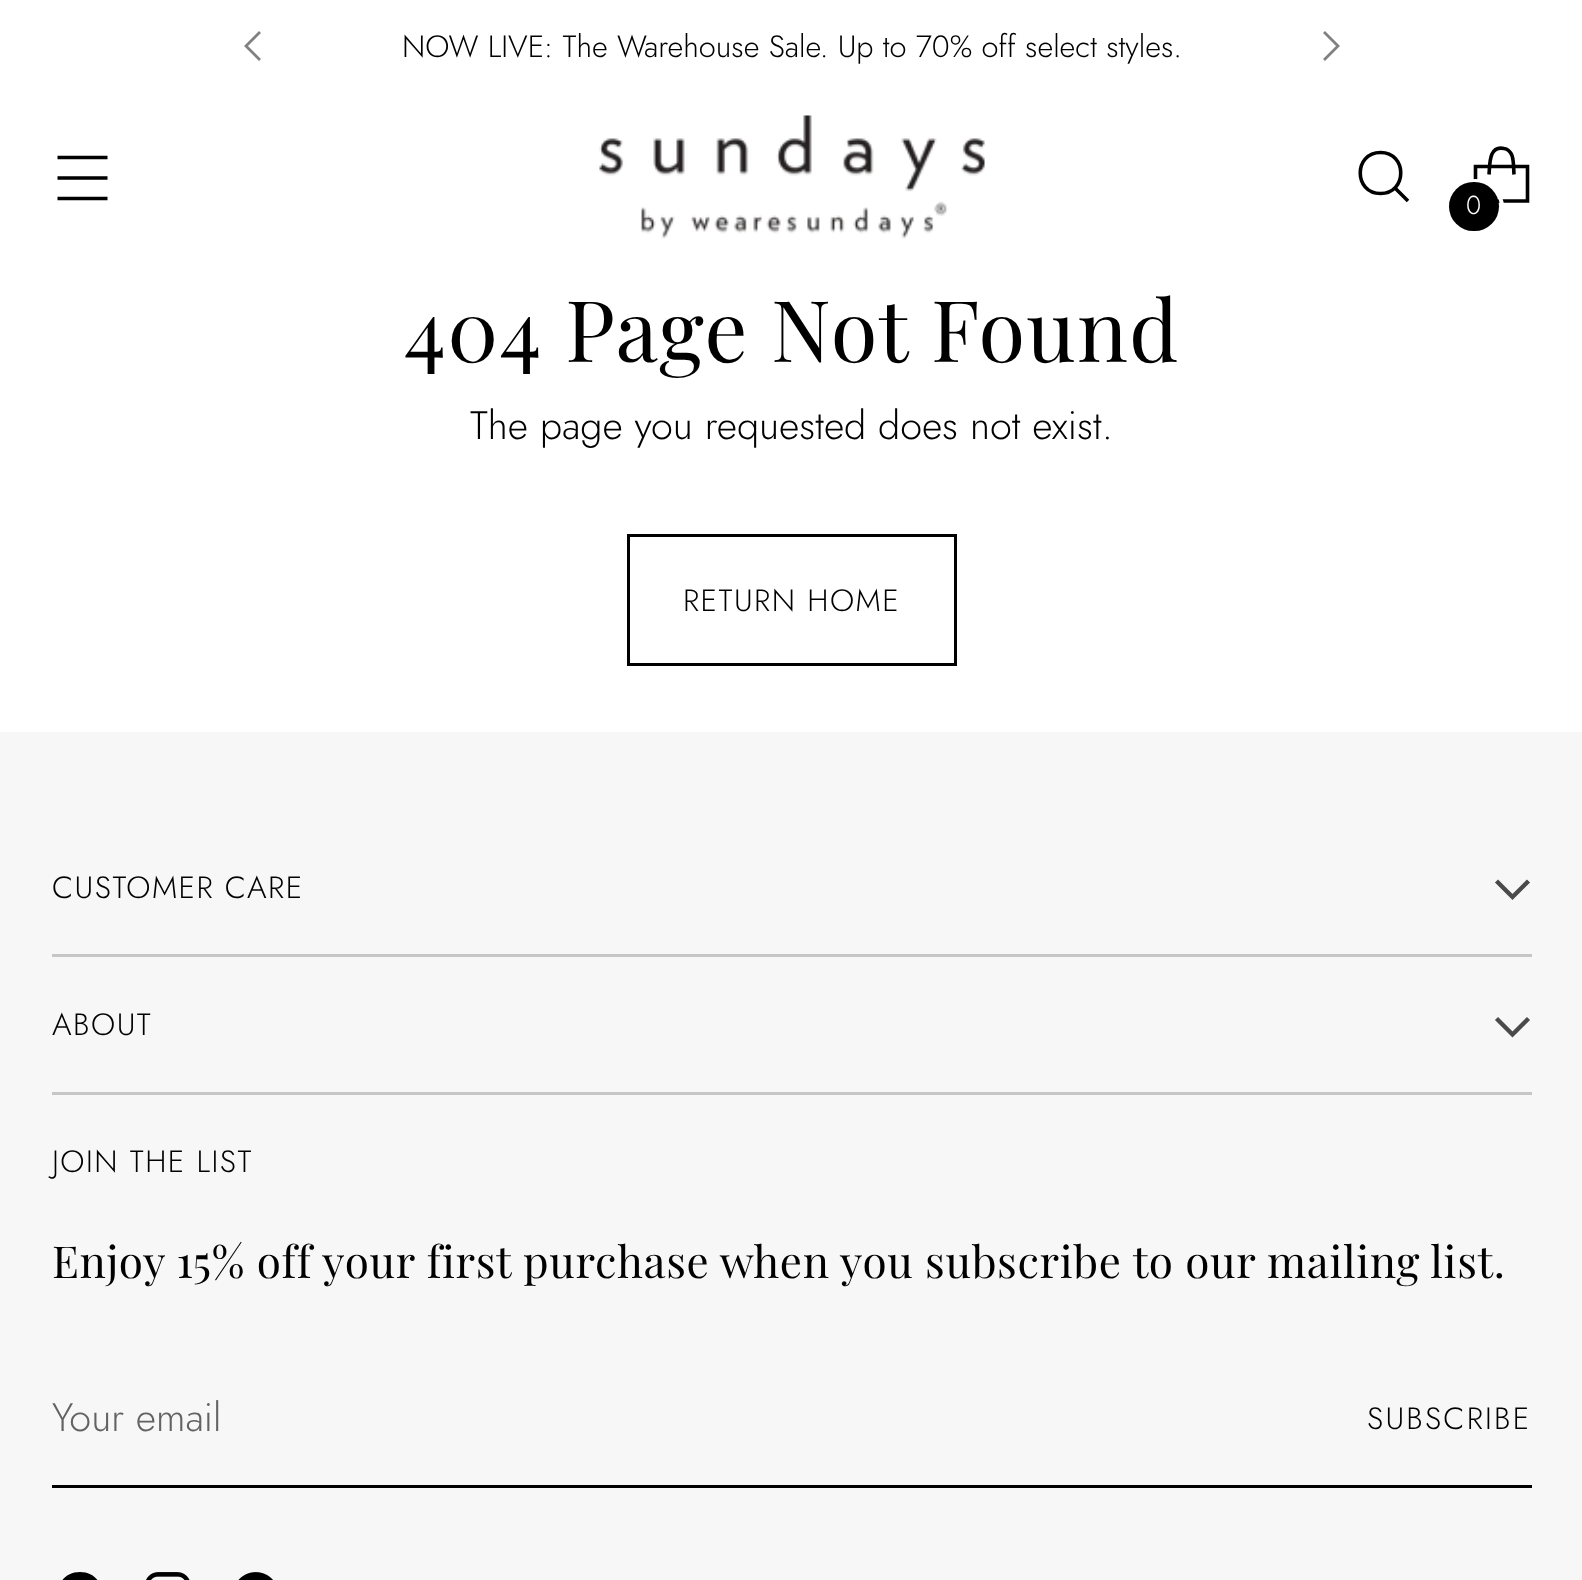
(async () => {
const canvas = document.querySelector("canvas")
canvas.width = 1582
canvas.height = 1580
const c = canvas.getContext("2d")
c.miterLimit = 4
c.fontKerning = "normal"
function T(s,x,y){c.fillText(s,x,y)}
function R(x,y,w,h){c.fillRect(x,y,w,h)}
function Q(x,y,w,h,r){c.beginPath();c.roundRect(x,y,w,h,r);c.fill()}
async function I(src,x,y,w,h){const img=new Image();img.src=src;await img.decode();c.drawImage(img,x,y,w,h)}
let path
c.fillStyle="#fff"
R(0,0,1582,1580)
path = new Path2D("M260 32l-14 14l14 14")
c.strokeStyle="#808080"
c.lineWidth=2.8
c.stroke(path)
path = new Path2D("M1324 60l14-14l-14-14")
c.stroke(path)
c.font="300 30.8px Jost"
c.fillStyle="#000"
T("NOW LIVE: The Warehouse Sale. Up to 70% off select styles.",402,57)
path = new Path2D("M57.5 178h50m-50-20.5h50m-50 41h50")
c.strokeStyle="#000"
c.lineWidth=3.6
c.stroke(path)
await I("1.png",599,115,386,124)
path = new Path2D("M1380.5 193.5c27 0 27-41 0-41c-27 0-27 41 0 41z")
c.lineCap="round"
c.stroke(path)
path = new Path2D("M1395 188l13 13")
c.lineCap="butt"
c.stroke(path)
path = new Path2D("M1514 174.5c-.5-6 0-13-2-19c-1.5-3.5-4-6.5-8-7c-15.5-3-14 16-15 26")
c.lineJoin="bevel"
c.stroke(path)
path = new Path2D("M1527.5 201v-34.5h-52v34.5z")
c.lineJoin="miter"
c.stroke(path)
c.beginPath()
c.roundRect(1449,181,53,54,26.5)
c.strokeStyle="#fff"
c.lineWidth=4
c.stroke()
Q(1449,182,50,49,24.5)
c.font="300 26px Jost"
c.fillStyle="#fff"
T("0",1466,214)
c.letterSpacing="1.25px"
c.font="85px Playfair Display"
c.fillStyle="#000"
T("404 Page Not Found",404,362)
c.letterSpacing="0px"
c.font="300 39.6px Jost"
T("The page you requested does not exist.",470,439)
c.strokeStyle="#000"
c.lineWidth=3
c.strokeRect(628.5,535.5,327,129)
c.letterSpacing="1.5px"
c.font="300 30.8px Jost"
T("RETURN HOME",683,611)
c.fillStyle="#f7f7f7"
R(0,732,1582,848)
c.fillStyle="#c6c6c6"
R(52,954,1480,3)
c.fillStyle="#000"
T("CUSTOMER CARE",52,898)
path = new Path2D("M1496.5 881l16 16l16-16")
c.strokeStyle="#4a4a4a"
c.lineWidth=4.4
c.stroke(path)
c.fillStyle="#c6c6c6"
R(52,1092,1480,3)
c.fillStyle="#000"
T("ABOUT",52,1035)
path = new Path2D("M1496.5 1018.5l16 16l16-16")
c.stroke(path)
T("JOIN THE LIST",52,1172)
c.letterSpacing="0.65px"
c.wordSpacing="-0.1px"
c.font="44.05px Playfair Display"
T("Enjoy 15% off your first purchase when you subscribe to our mailing list.",52,1278)
R(52,1485,1480,3)
c.letterSpacing="0px"
c.wordSpacing="0px"
c.font="300 39.6px Jost"
c.fillStyle="#636363"
T("Your email",52,1431)
c.letterSpacing="2.25px"
c.font="300 30.8px Jost"
c.fillStyle="#000"
T("SUBSCRIBE",1367,1429)
path = new Path2D("M80 1572c-28 0-31 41-4 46v-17h-5v-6h5c0-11 2-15 14-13v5c-7 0-7 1-7 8h7l-1 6h-6v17c28-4 25-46-3-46z")
c.fill(path)
await I("2.png",146,1572,44,8)
await I("3.png",238,1572,35,8)
})()
